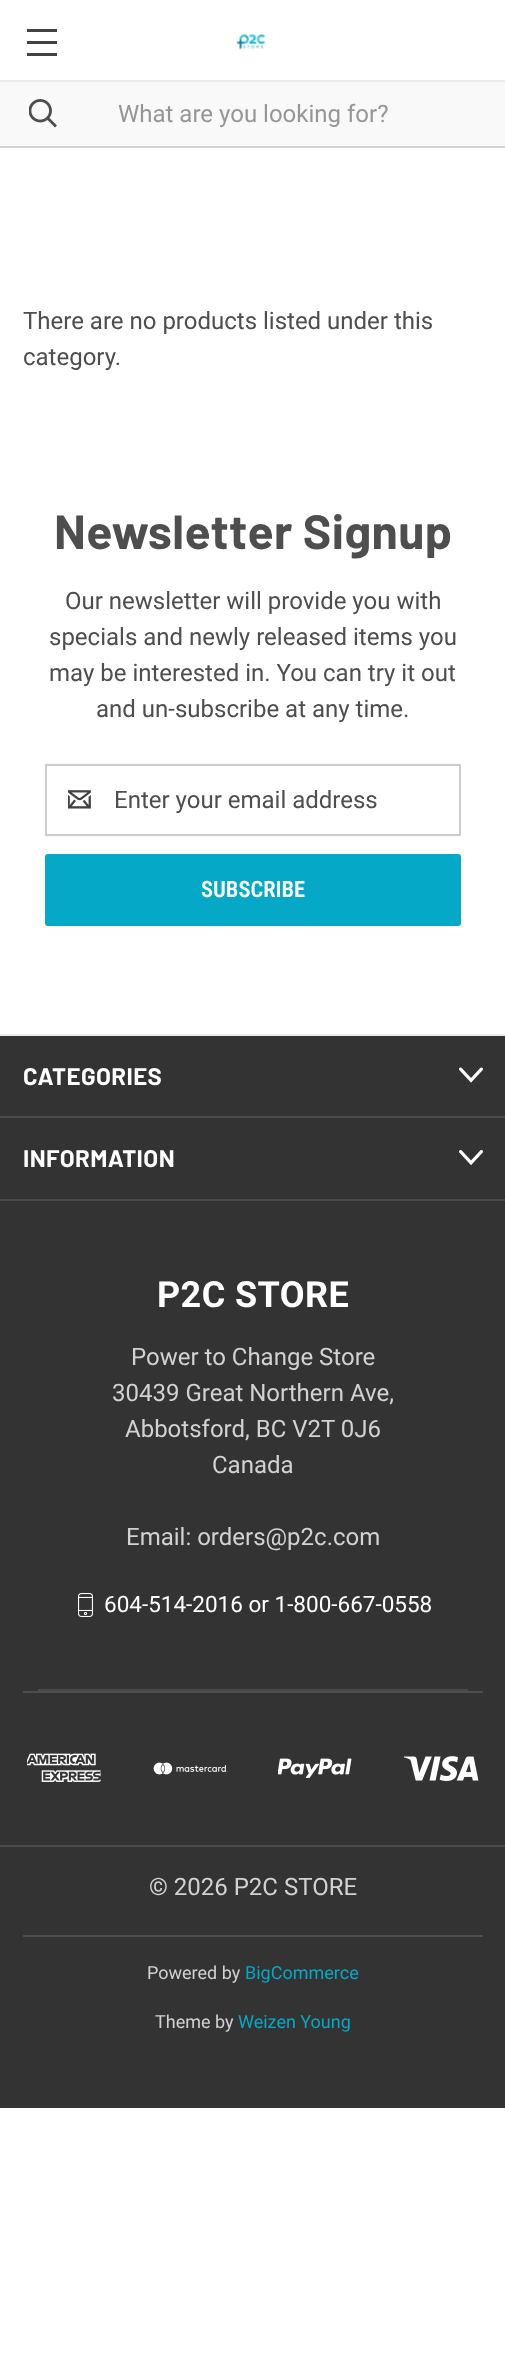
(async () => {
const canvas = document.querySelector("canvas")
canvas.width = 505
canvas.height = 2373
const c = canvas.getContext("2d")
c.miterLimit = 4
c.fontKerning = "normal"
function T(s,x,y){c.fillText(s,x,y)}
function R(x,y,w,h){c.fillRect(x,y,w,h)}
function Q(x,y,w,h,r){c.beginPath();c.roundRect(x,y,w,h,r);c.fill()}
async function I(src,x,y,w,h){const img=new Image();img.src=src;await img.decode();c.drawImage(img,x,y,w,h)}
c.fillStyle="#fff"
R(0,0,505,2373)
c.fillStyle="#424242"
R(27,41,30,3)
R(27,29,30,3)
R(27,53,30,3)
await I("1.png",236,34,30,16)
c.fillStyle="#f9f9f9"
R(0,82,505,64)
await I("2.png",29,99,28,29)
c.fillStyle="#ebebeb"
R(0,80,505,2)
c.font="24px Roboto"
c.fillStyle="#969696"
T("What are you looking for?",118,122)
c.fillStyle="#d2d2d2"
R(0,146,505,2)
c.fillStyle="#4e4e4e"
T("There are no products listed under this",23,329)
T("category.",23,365)
c.letterSpacing="0.4px"
c.font="bold 48px Barlow"
T("Newsletter Signup",54,549)
c.letterSpacing="0px"
c.font="24px Roboto"
T("Our newsletter will provide you with",65,609)
T("specials and newly released items you",49,645)
T("may be interested in. You can try it out",49,681)
T("and un-subscribe at any time.",96,717)
c.strokeStyle="#ccc"
c.lineWidth=2
c.strokeRect(46,765,414,70)
await I("3.png",68,790,23,19)
T("Enter your email address",114,808)
c.fillStyle="#05a9c7"
Q(45,854,416,72,3)
c.font="600 22.5px Roboto Condensed"
c.fillStyle="#fff"
T("SUBSCRIBE",201,897)
c.fillStyle="#333"
R(0,1036,505,1072)
c.fillStyle="#ebebeb"
R(0,1034,505,2)
c.fillStyle="#4a4a4a"
R(0,1116,505,2)
c.letterSpacing="0.4px"
c.font="bold 24px Barlow"
c.fillStyle="#fff"
T("CATEGORIES",23,1085)
await I("4.png",459,1067,24,16)
c.fillStyle="#4a4a4a"
R(0,1199,505,2)
c.fillStyle="#fff"
T("INFORMATION",23,1167)
await I("5.png",459,1150,24,15)
c.fillStyle="#4a4a4a"
R(38,1689,430,2)
c.font="bold 36px Roboto"
c.fillStyle="#fff"
T("P2C STORE",157,1307)
c.letterSpacing="0px"
c.font="24px Roboto"
c.fillStyle="#d2d2d2"
T("Power to Change Store",131,1365)
T("30439 Great Northern Ave,",112,1401)
T("Abbotsford, BC V2T 0J6",125,1437)
T("Canada",212,1473)
T("Email: orders@p2c.com",126,1545)
await I("6.png",78,1593,15,24)
c.font="22.5px Roboto"
c.fillStyle="#fff"
T("604-514-2016 or 1-800-667-0558",104,1612)
c.fillStyle="#4e4e4e"
R(23,1691,460,2)
c.fillStyle="#4a4a4a"
R(0,1845,505,2)
await I("7.png",27,1753,74,29)
await I("8.png",153,1762,75,13)
await I("9.png",278,1758,74,20)
await I("10.png",404,1756,75,25)
c.font="24px Roboto"
c.fillStyle="#d2d2d2"
T("© 2026 P2C STORE",149,1895)
c.fillStyle="#4e4e4e"
R(23,1935,460,2)
c.font="18px Roboto"
c.fillStyle="#d2d2d2"
T("Powered by",147,1979)
c.fillStyle="#05a9c7"
T("BigCommerce",245,1979)
c.fillStyle="#d2d2d2"
T("Theme by",155,2028)
c.fillStyle="#05a9c7"
T("Weizen Young",238,2028)
})()
